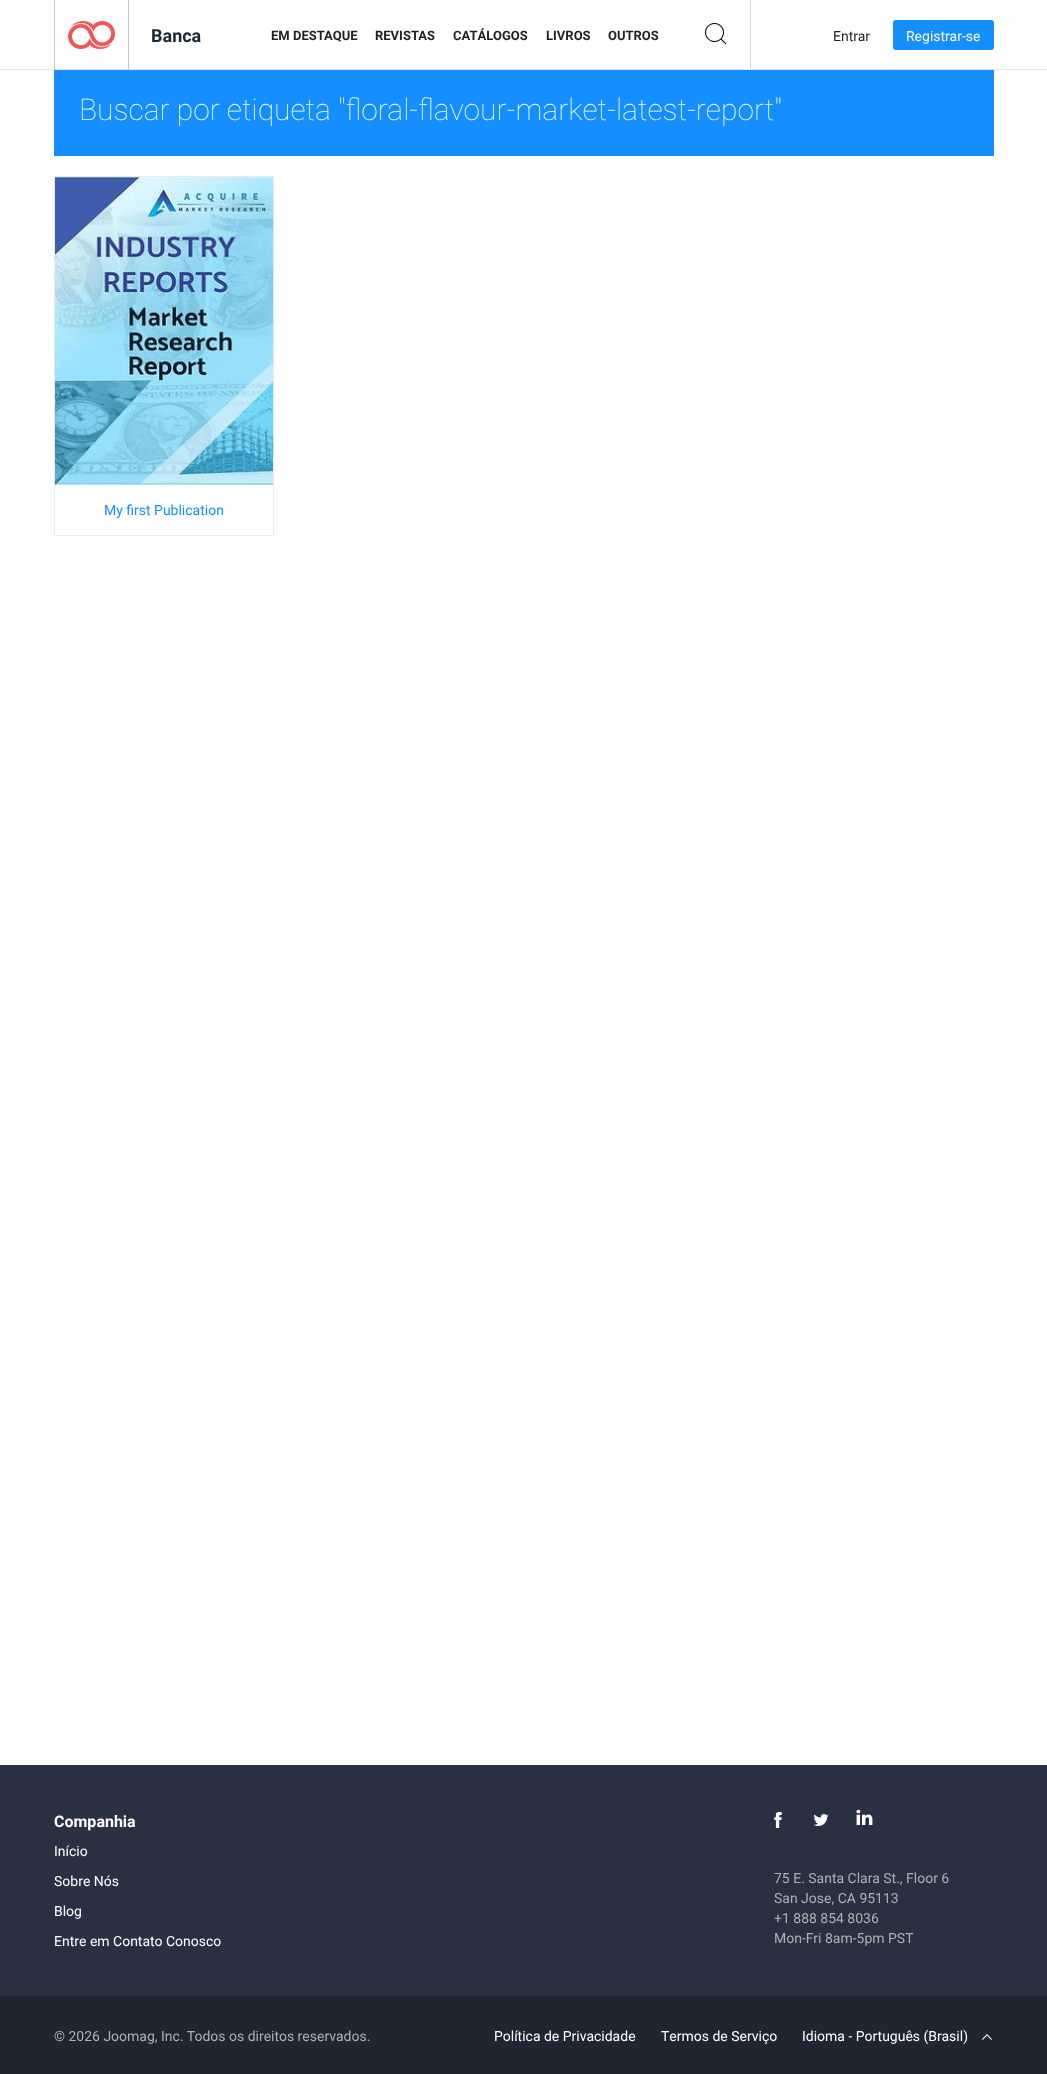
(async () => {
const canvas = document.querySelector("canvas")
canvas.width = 1047
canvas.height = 2074
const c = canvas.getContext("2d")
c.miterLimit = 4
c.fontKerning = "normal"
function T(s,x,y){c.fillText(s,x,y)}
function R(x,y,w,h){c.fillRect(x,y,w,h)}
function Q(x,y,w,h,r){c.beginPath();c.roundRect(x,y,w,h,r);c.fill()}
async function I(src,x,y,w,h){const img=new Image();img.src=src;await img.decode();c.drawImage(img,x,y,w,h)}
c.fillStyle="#fff"
R(0,0,1047,2074)
c.fillStyle="#e5e5e5"
R(0,69,1047,1)
c.fillStyle="#c6c6c6"
R(128,0,1,70)
R(54,0,1,70)
await I("1.png",68,21,47,28)
c.font="bold 18px Roboto"
c.fillStyle="#1e2638"
T("Banca",151,42)
c.font="bold 13px Roboto"
c.fillStyle="#231f20"
T("EM DESTAQUE",271,40)
T("REVISTAS",375,40)
T("CATÁLOGOS",453,40)
T("LIVROS",546,40)
T("OUTROS",608,40)
c.fillStyle="#d2d7d9"
R(750,0,1,69)
await I("2.png",705,23,22,22)
c.font="14px Roboto"
c.fillStyle="#202532"
T("Entrar",833,41)
c.fillStyle="#158fff"
Q(893,20,101,30,3)
c.fillStyle="#fff"
T("Registrar-se",906,41)
c.fillStyle="#158fff"
R(54,70,940,86)
c.font="100 30px Roboto"
c.fillStyle="#fff"
T("Buscar por etiqueta \"floral-flavour-market-latest-report\"",79,120)
c.strokeStyle="#e8ebeb"
c.strokeRect(54.5,176.5,219,359)
await I("3.png",55,177,218,308)
c.font="14px Roboto"
c.fillStyle="#158fff"
T("My first Publication",104,515)
c.fillStyle="#293042"
R(0,1765,1047,231)
c.font="bold 16px Roboto"
c.fillStyle="#fff"
T("Companhia",54,1827)
c.font="14px Roboto"
T("Início",54,1856)
T("Sobre Nós",54,1886)
T("Blog",54,1916)
T("Entre em Contato Conosco",54,1946)
await I("4.png",774,1812,8,16)
await I("5.png",813,1814,16,12)
await I("6.png",856,1809,17,16)
c.fillStyle="#abb2b6"
T("75 E. Santa Clara St., Floor 6",774,1883)
T("San Jose, CA 95113",774,1903)
T("+1 888 854 8036",774,1923)
T("Mon-Fri 8am-5pm PST",774,1943)
c.fillStyle="#202532"
R(0,1996,1047,78)
c.fillStyle="#abb2b6"
T("© 2026 Joomag, Inc. Todos os direitos reservados.",54,2041)
c.fillStyle="#fff"
T("Política de Privacidade",494,2041)
T("Termos de Serviço",661,2041)
T("Idioma - Português (Brasil)",802,2041)
await I("7.png",982,2034,10,6)
})()
